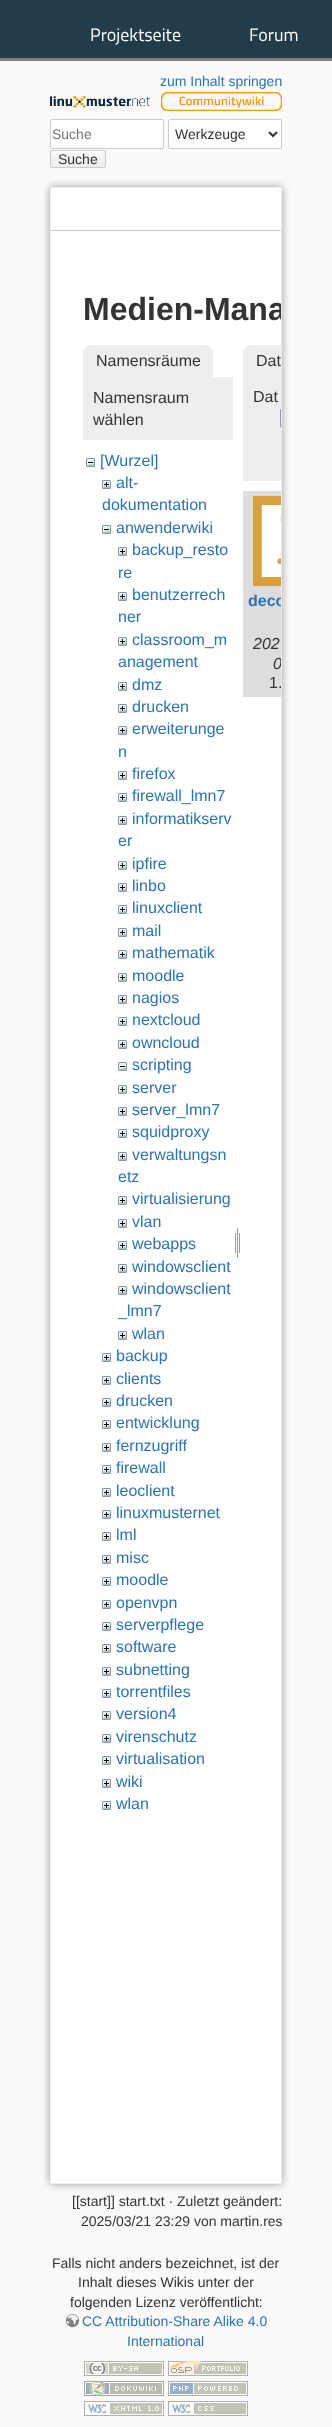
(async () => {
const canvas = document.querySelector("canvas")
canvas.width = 332
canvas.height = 2427
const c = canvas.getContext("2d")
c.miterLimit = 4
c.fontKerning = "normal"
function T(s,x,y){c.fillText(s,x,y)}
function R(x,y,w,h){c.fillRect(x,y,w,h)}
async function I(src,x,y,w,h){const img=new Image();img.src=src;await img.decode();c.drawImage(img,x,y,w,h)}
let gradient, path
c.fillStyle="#fbfaf9"
R(0,0,332,2427)
c.fillStyle="#233c4c"
R(0,0,332,58)
c.fillStyle="#808080"
R(0,58,332,3)
c.font="18px Titillium Web"
c.fillStyle="#fff"
T("Projektseite",90,41)
T("Forum",249,41)
c.font="14px Liberation Sans"
c.fillStyle="#2b73b7"
T("zum Inhalt springen",160,86)
await I("1.png",50,92,232,19)
c.fillStyle="#fff"
c.beginPath()
c.roundRect(50.5,119.5,113,29,1.5)
c.fill()
c.strokeStyle="#ccc"
c.stroke()
c.fillStyle="#757575"
T("Suche",52,139)
c.save()
c.beginPath()
c.roundRect(50,150,56,18,2)
c.clip()
gradient = c.createLinearGradient(78,151,78,167)
gradient.addColorStop(0,"#fff")
gradient.addColorStop(.3,"#f4f4f4")
gradient.addColorStop(.99,"#eee")
gradient.addColorStop(.99,"#ccc")
c.fillStyle = gradient
R(50,151,56,16)
c.restore()
c.beginPath()
c.roundRect(50.5,150.5,55,17,1.5)
c.stroke()
c.fillStyle="#333"
T("Suche",58,164)
c.fillStyle="#fff"
c.beginPath()
c.roundRect(168.5,119.5,113,29,1.5)
c.fill()
c.stroke()
path = new Path2D("M269 132l4 4l4-4")
c.strokeStyle="#333"
c.lineWidth=2
c.stroke(path)
c.fillStyle="#333"
T("Werkzeuge",175,139)
c.fillStyle="#999"
c.filter="blur(4px)"
c.beginPath()
c.roundRect(50,187,232,1997,2)
c.fill()
c.filter="none"
c.fillStyle="#fff"
c.beginPath()
c.roundRect(50.5,187.5,231,1996,1.5)
c.fill()
c.strokeStyle="#eee"
c.lineWidth=1
c.stroke()
c.fillStyle="#ccc"
R(51,230,230,1)
c.save()
c.beginPath()
c.roundRect(51,188,230,1995,1)
c.clip()
c.font="bold 32px Liberation Sans"
c.fillStyle="#333"
T("Medien-Mana",83,320)
c.restore()
c.fillStyle="#eee"
c.beginPath()
c.roundRect(83,345,130,32,[8,8,0,0])
c.fill()
c.font="16px Liberation Sans"
c.fillStyle="#333"
T("Namensräume",96,366)
c.fillStyle="#eee"
R(83,377,150,63)
c.fillStyle="#333"
T("Namensraum",93,403)
T("wählen",93,425)
await I("2.png",86,458,9,9)
c.fillStyle="#2b73b7"
T("[Wurzel]",100,466)
await I("3.png",102,480,9,9)
T("alt-",116,488)
T("dokumentation",102,510)
await I("2.png",102,525,9,9)
T("anwenderwiki",116,533)
await I("3.png",118,547,9,9)
T("backup_resto",132,555)
T("re",118,578)
await I("3.png",118,592,9,9)
T("benutzerrech",132,600)
T("ner",118,622)
await I("3.png",118,637,9,9)
T("classroom_m",132,645)
T("anagement",118,667)
await I("3.png",118,682,9,9)
T("dmz",132,690)
await I("3.png",118,704,9,9)
T("drucken",132,712)
await I("3.png",118,726,9,9)
T("erweiterunge",132,734)
T("n",118,757)
await I("3.png",118,771,9,9)
T("firefox",132,779)
await I("3.png",118,793,9,9)
T("firewall_lmn7",132,801)
await I("3.png",118,816,9,9)
T("informatikserv",132,824)
T("er",118,846)
await I("3.png",118,861,9,9)
T("ipfire",132,869)
await I("3.png",118,883,9,9)
T("linbo",132,891)
await I("3.png",118,905,9,9)
T("linuxclient",132,913)
await I("3.png",118,928,9,9)
T("mail",132,936)
await I("3.png",118,950,9,9)
T("mathematik",132,958)
await I("3.png",118,973,9,9)
T("moodle",132,981)
await I("3.png",118,995,9,9)
T("nagios",132,1003)
await I("3.png",118,1017,9,9)
T("nextcloud",132,1025)
await I("3.png",118,1040,9,9)
T("owncloud",132,1048)
await I("2.png",118,1062,9,9)
T("scripting",132,1070)
await I("3.png",118,1085,9,9)
T("server",132,1093)
await I("3.png",118,1107,9,9)
T("server_lmn7",132,1115)
await I("3.png",118,1129,9,9)
T("squidproxy",132,1137)
await I("3.png",118,1152,9,9)
T("verwaltungsn",132,1160)
T("etz",118,1182)
await I("3.png",118,1196,9,9)
T("virtualisierung",132,1204)
await I("3.png",118,1219,9,9)
T("vlan",132,1227)
await I("3.png",118,1241,9,9)
T("webapps",132,1249)
await I("3.png",118,1264,9,9)
T("windowsclient",132,1272)
await I("3.png",118,1286,9,9)
T("windowsclient",132,1294)
T("_lmn7",118,1316)
await I("3.png",118,1331,9,9)
T("wlan",132,1339)
await I("3.png",102,1353,9,9)
T("backup",116,1361)
await I("3.png",102,1376,9,9)
T("clients",116,1384)
await I("3.png",102,1398,9,9)
T("drucken",116,1406)
await I("3.png",102,1420,9,9)
T("entwicklung",116,1428)
await I("3.png",102,1443,9,9)
T("fernzugriff",116,1451)
await I("3.png",102,1465,9,9)
T("firewall",116,1473)
await I("3.png",102,1488,9,9)
T("leoclient",116,1496)
await I("3.png",102,1510,9,9)
T("linuxmusternet",116,1518)
await I("3.png",102,1532,9,9)
T("lml",116,1540)
await I("3.png",102,1555,9,9)
T("misc",116,1563)
await I("3.png",102,1577,9,9)
T("moodle",116,1585)
await I("3.png",102,1600,9,9)
T("openvpn",116,1608)
await I("3.png",102,1622,9,9)
T("serverpflege",116,1630)
await I("3.png",102,1644,9,9)
T("software",116,1652)
await I("3.png",102,1667,9,9)
T("subnetting",116,1675)
await I("3.png",102,1689,9,9)
T("torrentfiles",116,1697)
await I("3.png",102,1711,9,9)
T("version4",116,1719)
await I("3.png",102,1734,9,9)
T("virenschutz",116,1742)
await I("3.png",102,1756,9,9)
T("virtualisation",116,1764)
await I("3.png",102,1779,9,9)
T("wiki",116,1787)
await I("3.png",102,1801,9,9)
T("wlan",116,1809)
await I("4.png",235,1227,5,31)
c.fillStyle="#eee"
c.beginPath()
c.roundRect(243,345,38,32,[8,0,0,0])
c.fill()
c.fillStyle="#333"
T("Dat",256,366)
c.fillStyle="#eee"
R(243,377,38,104)
c.fillStyle="#333"
T("Dat",253,402)
await I("5.png",280,409,1,19)
c.fillStyle="#ddd"
R(243,491,38,206)
await I("6.png",253,496,28,90)
c.save()
c.beginPath()
c.roundRect(51,188,230,1995,1)
c.clip()
c.font="bold 16px Liberation Sans"
c.fillStyle="#2b73b7"
T("deco",248,606)
c.restore()
c.font="italic 16px Liberation Sans"
c.fillStyle="#333"
T("202",253,649)
c.save()
c.beginPath()
c.roundRect(51,188,230,1995,1)
c.clip()
T("0",273,669)
c.restore()
c.font="16px Liberation Sans"
T("1.",269,688)
c.font="14px Liberation Sans"
T("[[start]] start.txt · Zuletzt geändert:",72,2206)
T("2025/03/21 23:29 von martin.res",81,2226)
T("Falls nicht anders bezeichnet, ist der",52,2268)
T("Inhalt dieses Wikis unter der",78,2287)
T("folgenden Lizenz veröffentlicht:",70,2307)
await I("7.png",66,2314,14,14)
c.fillStyle="#2b73b7"
T("CC Attribution-Share Alike 4.0",82,2326)
T("International",127,2346)
await I("8.png",84,2361,80,15)
await I("9.png",168,2361,80,15)
await I("10.png",84,2381,80,15)
await I("11.png",168,2381,80,15)
await I("12.png",84,2401,80,15)
await I("13.png",168,2401,80,15)
})()
